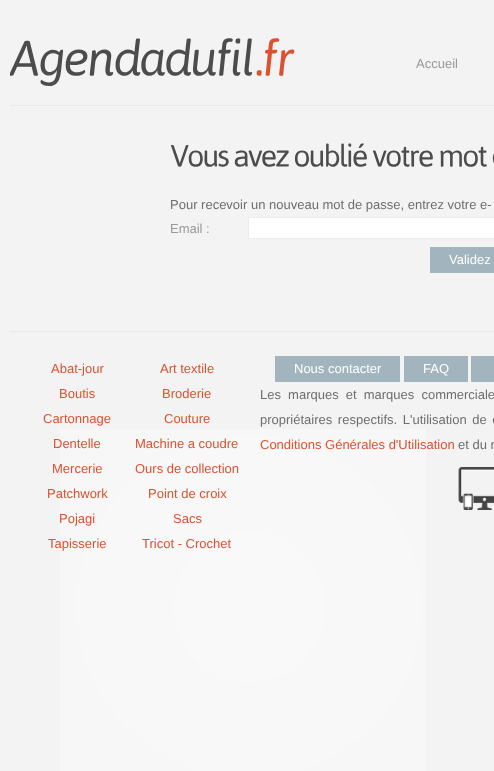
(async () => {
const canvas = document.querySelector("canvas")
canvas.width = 494
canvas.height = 771
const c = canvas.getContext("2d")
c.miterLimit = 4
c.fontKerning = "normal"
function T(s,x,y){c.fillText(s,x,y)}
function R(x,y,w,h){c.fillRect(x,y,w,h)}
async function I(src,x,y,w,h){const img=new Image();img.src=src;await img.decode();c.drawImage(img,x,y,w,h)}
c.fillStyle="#f3f3f3"
R(0,0,494,771)
await I("1.png",60,429,366,342)
c.fillStyle="#e7e7e7"
R(10,105,484,1)
await I("2.png",10,38,243,48)
await I("3.png",256,38,39,38)
c.font="13px Liberation Sans"
c.fillStyle="#999"
T("Accueil",416,68)
await I("4.png",171,145,58,22)
await I("5.png",234,150,55,17)
await I("6.png",294,143,73,24)
await I("7.png",373,146,60,21)
await I("8.png",440,146,47,21)
await I("9.png",492,153,2,10)
c.fillStyle="#6e6e6e"
T("Pour recevoir un nouveau mot de passe, entrez votre e-",170,209)
c.fillStyle="#999"
T("Email :",170,233)
c.fillStyle="#fff"
c.beginPath()
c.rect(248.5,217.5,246,21)
c.fill()
c.strokeStyle="#ececec"
c.stroke()
c.fillStyle="#a2b5bf"
R(430,247,64,26)
c.fillStyle="#fff"
T("Validez",449,264)
c.fillStyle="#e7e7e7"
R(10,331,484,1)
c.fillStyle="#dc5130"
T("Abat-jour",51,373)
T("Art textile",160,373)
T("Boutis",59,398)
T("Broderie",162,398)
T("Cartonnage",43,423)
T("Couture",164,423)
T("Dentelle",53,448)
T("Machine a coudre",135,448)
T("Mercerie",52,473)
T("Ours de collection",135,473)
T("Patchwork",47,498)
T("Point de croix",148,498)
T("Pojagi",59,523)
T("Sacs",173,523)
T("Tapisserie",48,548)
T("Tricot - Crochet",142,548)
c.fillStyle="#a2b5bf"
R(275,356,125,26)
c.fillStyle="#fff"
T("Nous contacter",294,373)
c.fillStyle="#a2b5bf"
R(404,356,64,26)
c.fillStyle="#fff"
T("FAQ",423,373)
c.fillStyle="#a2b5bf"
R(471,356,23,26)
c.wordSpacing="3.5px"
c.fillStyle="#6e6e6e"
T("Les marques et marques commerciale",260,399)
c.wordSpacing="2px"
T("propriétaires respectifs. L'utilisation de c",260,424)
c.wordSpacing="0px"
c.fillStyle="#dc5130"
T("Conditions Générales d'Utilisation",260,449)
c.fillStyle="#6e6e6e"
T("et du r",458,449)
await I("10.png",458,467,36,43)
})()
